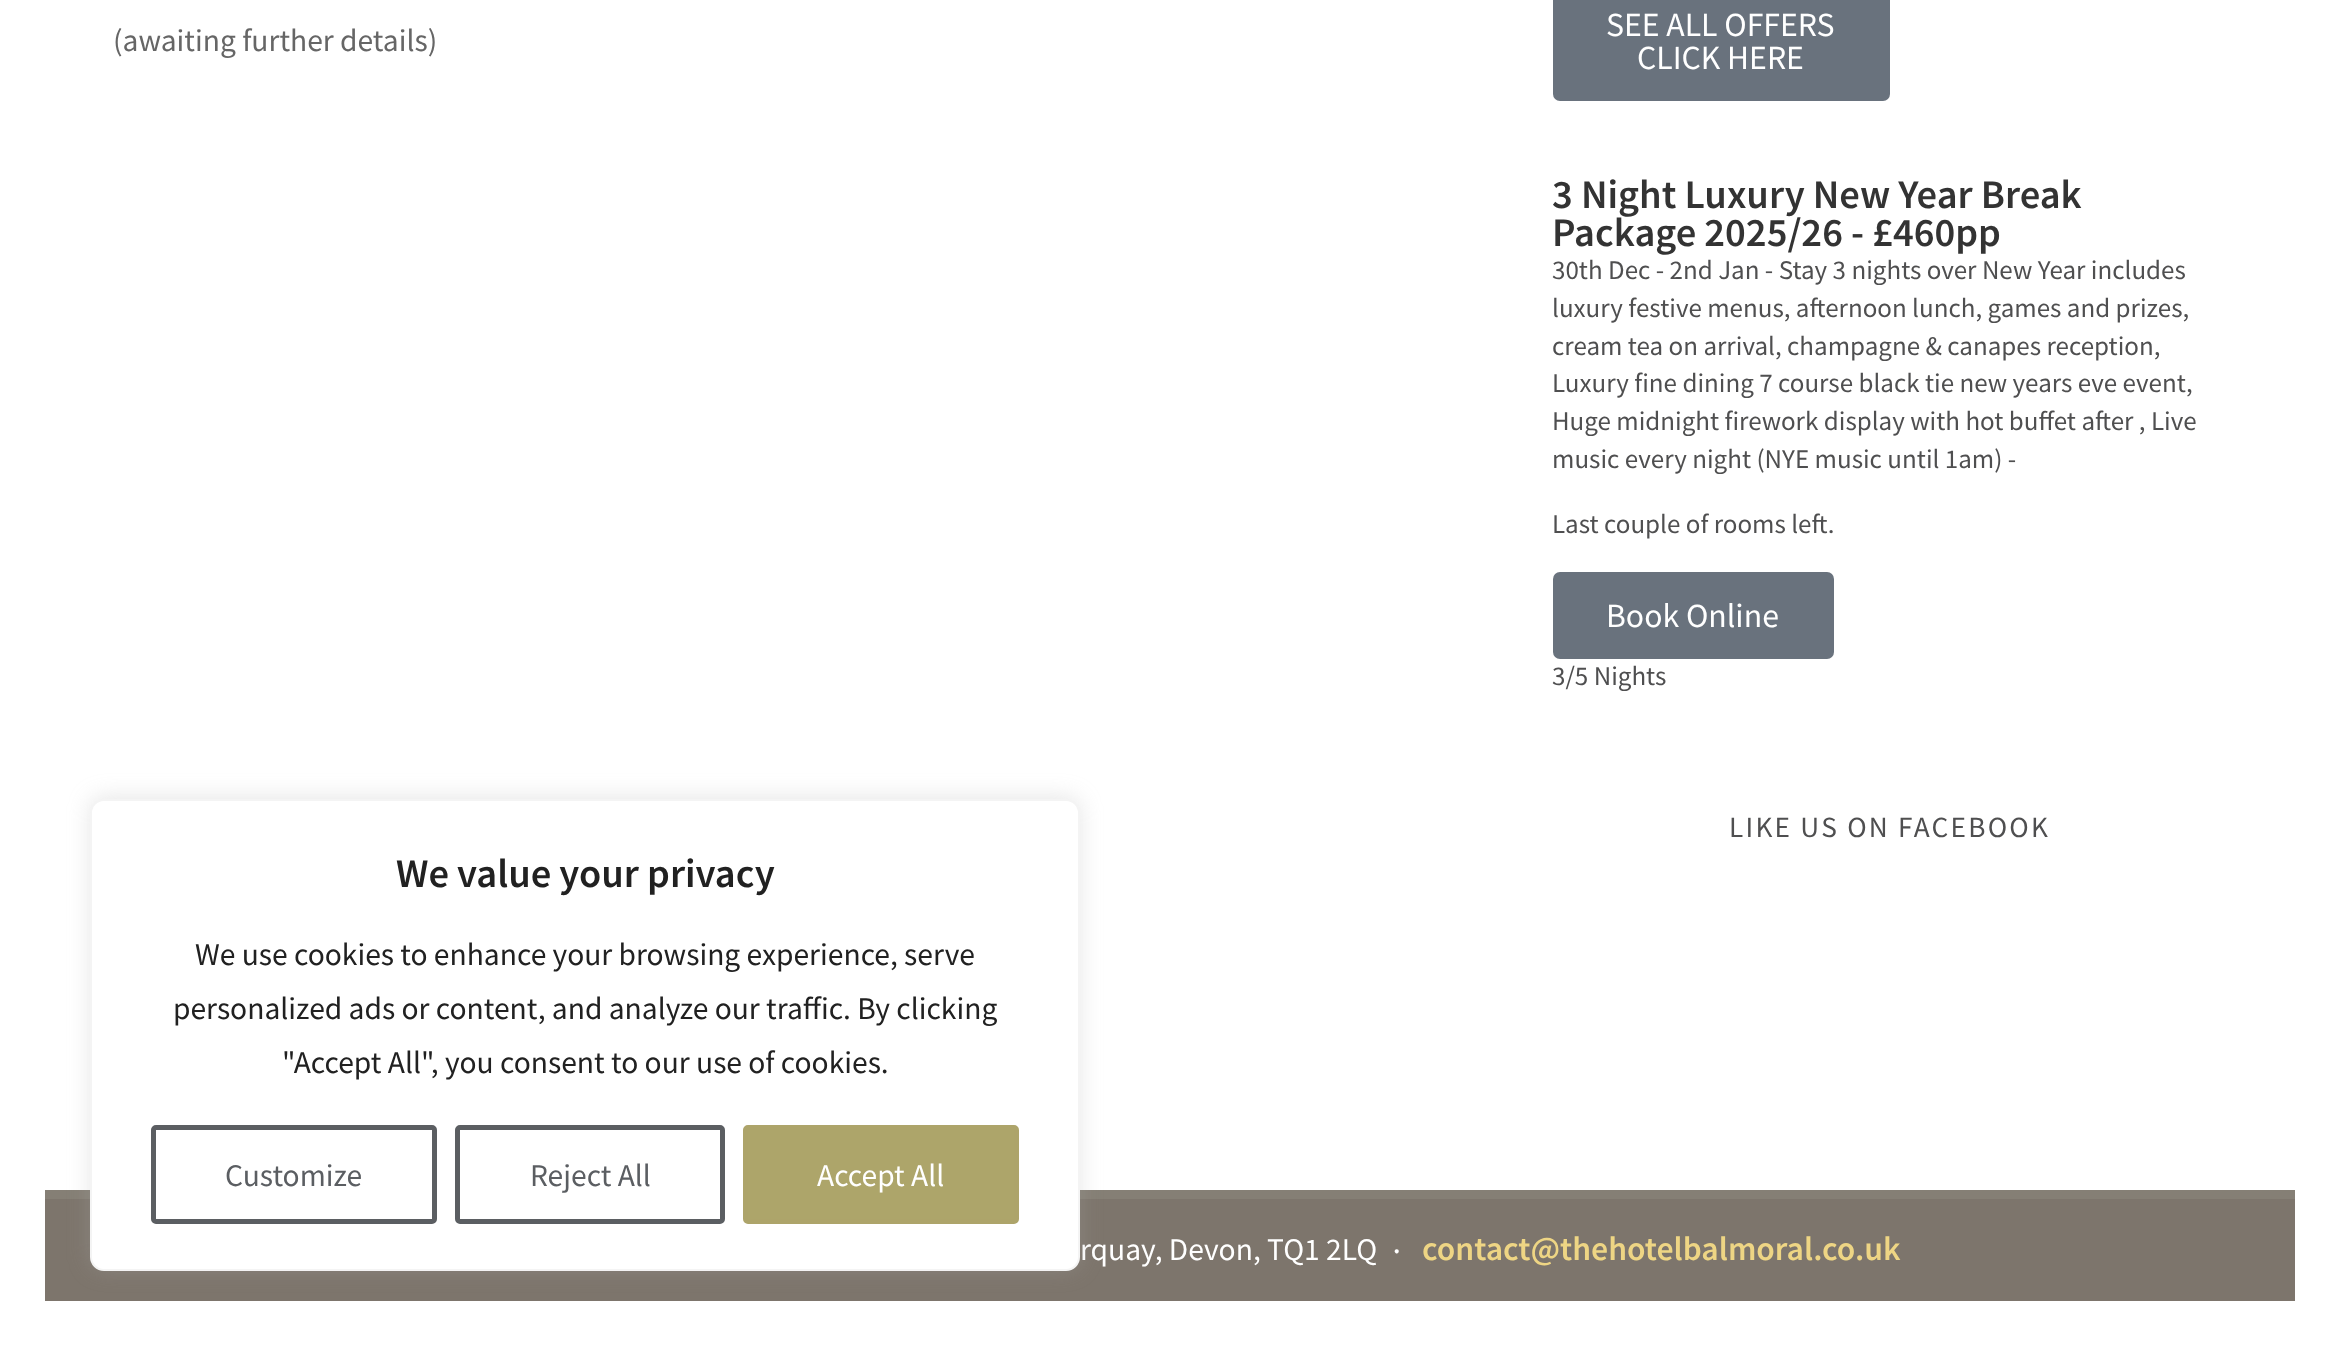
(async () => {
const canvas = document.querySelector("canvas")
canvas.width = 2340
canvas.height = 1361
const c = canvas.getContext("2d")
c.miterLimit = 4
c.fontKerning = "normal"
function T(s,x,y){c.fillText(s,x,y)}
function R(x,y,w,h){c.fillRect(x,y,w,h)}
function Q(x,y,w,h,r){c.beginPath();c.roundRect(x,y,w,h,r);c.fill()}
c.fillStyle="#fff"
R(0,0,2340,1361)
c.fillStyle="#857f75"
R(45,1190,2250,9)
c.font="31.5px Source Sans Pro"
c.fillStyle="#666"
T("(awaiting further details)",113,51)
c.fillStyle="#69727d"
Q(1553,-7,337,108,7)
c.font="33.75px Source Sans Pro"
c.fillStyle="#fff"
T("SEE ALL OFFERS",1606,36)
T("CLICK HERE",1637,69)
c.font="600 40.5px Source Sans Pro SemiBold"
c.fillStyle="#333"
T("3 Night Luxury New Year Break",1552,208)
T("Package 2025/26 - £460pp",1552,246)
c.font="27px Source Sans Pro"
c.fillStyle="#4f4f50"
T("30th Dec - 2nd Jan - Stay 3 nights over New Year includes",1552,279)
T("luxury festive menus, afternoon lunch, games and prizes,",1552,317)
T("cream tea on arrival, champagne & canapes reception,",1552,355)
T("Luxury fine dining 7 course black tie new years eve event,",1552,392)
T("Huge midnight firework display with hot buffet after , Live",1552,430)
T("music every night (NYE music until 1am) -",1552,468)
T("Last couple of rooms left.",1552,533)
c.fillStyle="#69727d"
Q(1553,572,281,87,7)
c.font="33.75px Source Sans Pro"
c.fillStyle="#fff"
T("Book Online",1606,627)
c.font="27px Source Sans Pro"
c.fillStyle="#4f4f50"
T("3/5 Nights",1552,685)
c.letterSpacing="2.25px"
c.font="29.25px Source Sans Pro"
T("LIKE US ON FACEBOOK",1729,837)
c.fillStyle="#7d756c"
R(45,1199,2250,102)
c.letterSpacing="0px"
c.font="31.5px Source Sans Pro"
c.fillStyle="#fff"
T("rquay, Devon, TQ1 2LQ",1080,1260)
c.font="600 27px Source Sans Pro SemiBold"
T("·",1393,1260)
c.font="600 33.75px Source Sans Pro SemiBold"
c.fillStyle="#eed584"
T("contact@thehotelbalmoral.co.uk",1422,1260)
c.fillStyle="#acabab4d"
c.filter="blur(11px)"
c.beginPath()
c.roundRect(90,797,990,472,14)
c.fill()
c.filter="none"
c.fillStyle="#fff"
c.beginPath()
c.roundRect(91,800,988,470,13)
c.fill()
c.strokeStyle="#f4f4f4"
c.lineWidth=2
c.stroke()
c.font="600 40.5px Source Sans Pro SemiBold"
c.fillStyle="#212121"
T("We value your privacy",396,887)
c.font="31.5px Source Sans Pro"
T("We use cookies to enhance your browsing experience, serve",195,965)
T("personalized ads or content, and analyze our traffic. By clicking",173,1019)
T("\"Accept All\", you consent to our use of cookies.",282,1073)
c.beginPath()
c.roundRect(153.5,1127.5,281,94,2.5)
c.strokeStyle="#5b5e62"
c.lineWidth=5
c.stroke()
c.fillStyle="#5b5e62"
T("Customize",225,1186)
c.beginPath()
c.roundRect(457.5,1127.5,265,94,2.5)
c.stroke()
T("Reject All",530,1186)
c.fillStyle="#ada56a"
c.beginPath()
c.roundRect(745.5,1127.5,271,94,2.5)
c.fill()
c.strokeStyle="#ada46a"
c.stroke()
c.fillStyle="#fff"
T("Accept All",817,1186)
})()
